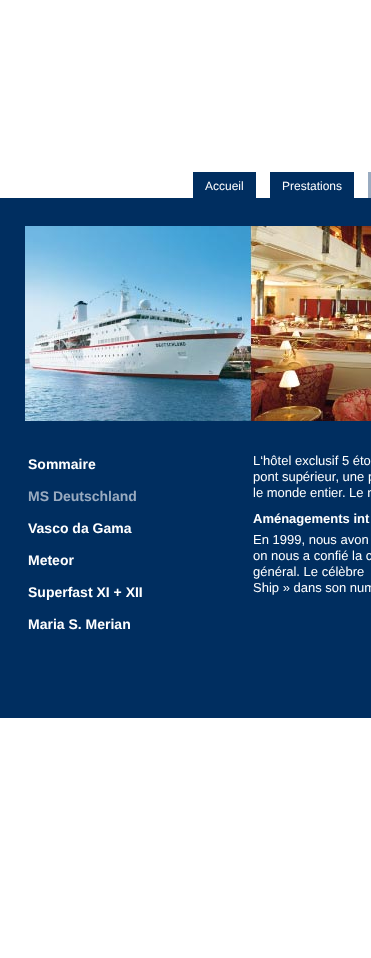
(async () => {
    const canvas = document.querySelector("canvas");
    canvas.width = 371;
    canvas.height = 958;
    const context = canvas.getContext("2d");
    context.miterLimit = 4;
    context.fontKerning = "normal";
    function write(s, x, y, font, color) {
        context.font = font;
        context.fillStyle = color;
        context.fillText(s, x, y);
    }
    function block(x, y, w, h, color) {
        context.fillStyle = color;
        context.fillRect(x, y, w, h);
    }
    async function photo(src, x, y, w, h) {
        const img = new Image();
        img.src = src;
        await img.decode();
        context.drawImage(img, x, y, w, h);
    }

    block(0, 0, 371, 958, "rgb(255, 255, 255)");
    block(193, 172, 63, 26, "rgb(0, 46, 96)");
    write("Accueil", 205, 190, "12px Liberation Sans", "rgb(255, 255, 255)");
    block(270, 172, 84, 26, "rgb(0, 46, 96)");
    write("Prestations", 282, 190, "12px Liberation Sans", "rgb(255, 255, 255)");
    block(368, 172, 3, 26, "rgb(153, 171, 192)");
    block(0, 198, 371, 520, "rgb(0, 46, 96)");
    await photo("media/1.png", 25, 226, 346, 195);
    write("Sommaire", 28, 469, "bold 14px Liberation Sans", "rgb(255, 255, 255)");
    write("MS Deutschland", 28, 501, "bold 14px Liberation Sans", "rgb(153, 171, 192)");
    write("Vasco da Gama", 28, 533, "bold 14px Liberation Sans", "rgb(255, 255, 255)");
    write("Meteor", 28, 565, "bold 14px Liberation Sans", "rgb(255, 255, 255)");
    write("Superfast XI + XII", 28, 597, "bold 14px Liberation Sans", "rgb(255, 255, 255)");
    write("Maria S. Merian", 28, 629, "bold 14px Liberation Sans", "rgb(255, 255, 255)");
    write("L‘hôtel exclusif 5 éto", 253, 465, "13px Liberation Sans", "rgb(255, 255, 255)");
    write("pont supérieur, une p", 253, 481, "13px Liberation Sans", "rgb(255, 255, 255)");
    write("le monde entier. Le n", 253, 497, "13px Liberation Sans", "rgb(255, 255, 255)");
    write("Aménagements int", 253, 523, "bold 13px Liberation Sans", "rgb(255, 255, 255)");
    write("En 1999, nous avon", 253, 544, "13px Liberation Sans", "rgb(255, 255, 255)");
    write("on nous a confié la c", 253, 560, "13px Liberation Sans", "rgb(255, 255, 255)");
    write("général. Le célèbre", 253, 576, "13px Liberation Sans", "rgb(255, 255, 255)");
    write("Ship » dans son num", 253, 592, "13px Liberation Sans", "rgb(255, 255, 255)");
})();
